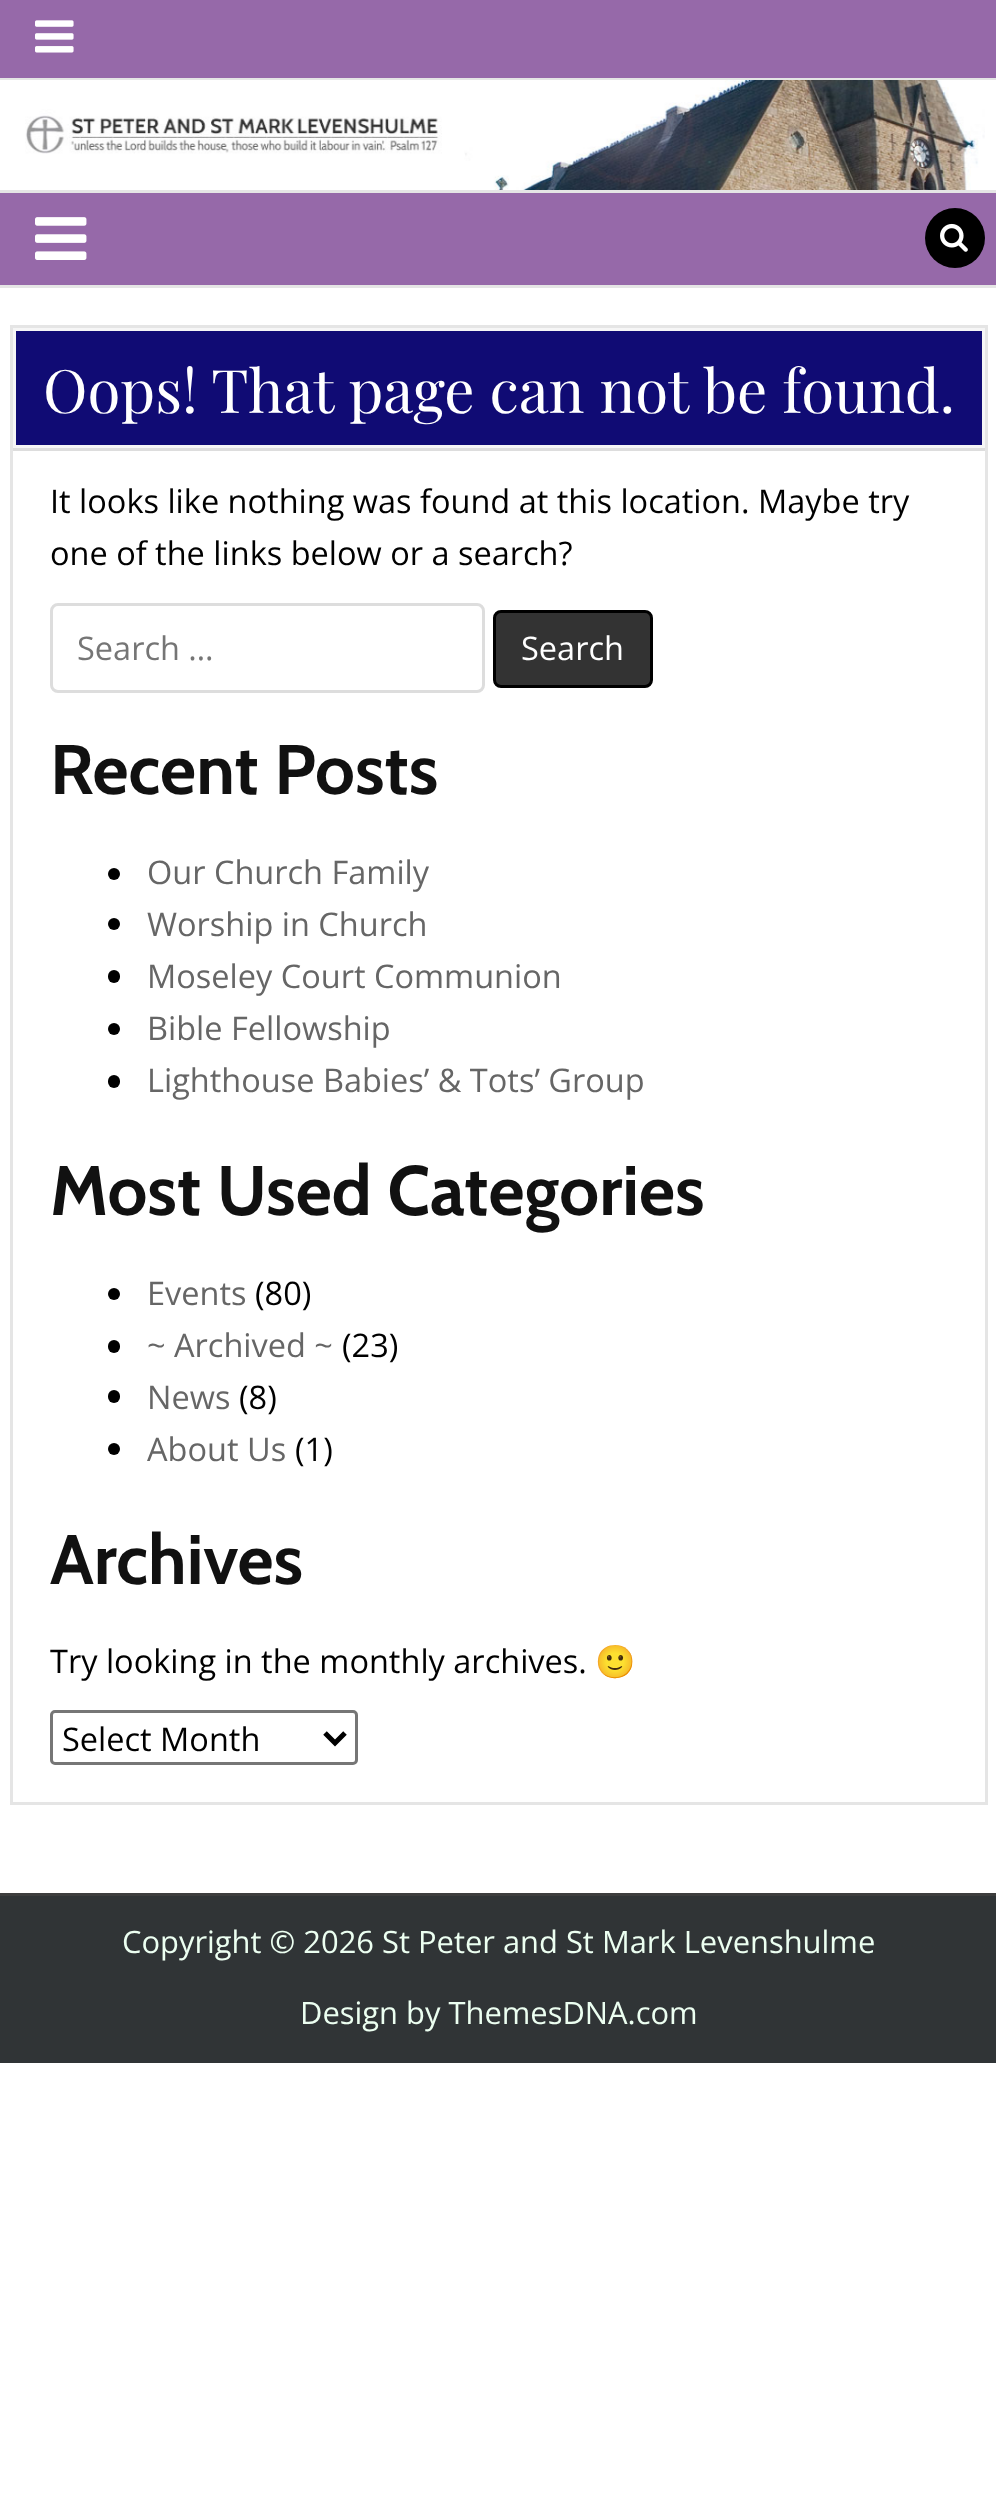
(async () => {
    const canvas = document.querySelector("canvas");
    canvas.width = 996;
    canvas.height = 2505;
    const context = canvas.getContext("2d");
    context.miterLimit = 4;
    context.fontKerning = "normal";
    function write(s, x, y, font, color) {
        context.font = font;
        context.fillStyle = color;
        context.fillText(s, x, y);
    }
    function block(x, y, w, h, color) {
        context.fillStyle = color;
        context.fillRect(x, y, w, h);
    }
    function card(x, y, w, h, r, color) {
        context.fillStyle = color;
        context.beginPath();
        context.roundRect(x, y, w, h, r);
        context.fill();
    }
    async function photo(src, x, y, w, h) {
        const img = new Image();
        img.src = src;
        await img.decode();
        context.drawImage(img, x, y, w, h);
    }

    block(0, 0, 996, 2505, "rgb(255, 255, 255)");
    block(0, 0, 996, 78, "rgb(150, 105, 169)");
    block(0, 78, 996, 2, "rgb(229, 229, 229)");
    await photo("media/1.png", 35, 20, 39, 33);
    await photo("media/2.png", 25, 80, 960, 110);
    block(0, 193, 996, 92, "rgb(150, 105, 169)");
    block(0, 190, 996, 3, "rgb(229, 229, 229)");
    block(0, 285, 996, 3, "rgb(229, 229, 229)");
    await photo("media/3.png", 35, 217, 52, 43);
    context.fillStyle = "rgb(0, 0, 0)";
    context.beginPath();
    context.arc(955, 238, 30, 0, Math.PI * 2);
    context.fill();
    await photo("media/4.png", 940, 223, 28, 29);
    context.strokeStyle = "rgb(229, 229, 229)";
    context.lineWidth = 3;
    context.strokeRect(11.5, 326.5, 975, 1477);
    block(13, 448, 972, 3, "rgb(221, 221, 221)");
    context.fillStyle = "rgb(16, 11, 116)";
    context.beginPath();
    context.rect(14.5, 329.5, 969, 117);
    context.fill();
    context.strokeStyle = "rgb(246, 246, 246)";
    context.stroke();
    write("Oops! That page can not be found.", 43, 413, "60px Playfair Display", "rgb(255, 255, 255)");
    write("It looks like nothing was found at this location. Maybe try", 50, 513, "32.5px Open Sans", "rgb(0, 0, 0)");
    write("one of the links below or a search?", 50, 565, "32.5px Open Sans", "rgb(0, 0, 0)");
    context.beginPath();
    context.roundRect(51.5, 604.5, 432, 87, 6.5);
    context.strokeStyle = "rgb(221, 221, 221)";
    context.stroke();
    write("Search …", 77, 660, "32.5px Open Sans", "rgb(117, 117, 117)");
    context.fillStyle = "rgb(51, 51, 51)";
    context.beginPath();
    context.roundRect(494.5, 611.5, 157, 75, 6.5);
    context.fill();
    context.strokeStyle = "rgb(0, 0, 0)";
    context.stroke();
    write("Search", 521, 660, "32.5px Open Sans", "rgb(255, 255, 255)");
    write("Recent Posts", 50, 794, "bold 70px Cabin", "rgb(17, 17, 17)");
    context.fillStyle = "rgb(0, 0, 0)";
    context.beginPath();
    context.arc(114, 874, 6, 0, Math.PI * 2);
    context.fill();
    write("Our Church Family", 147, 884, "32.5px Open Sans", "rgb(102, 102, 102)");
    context.fillStyle = "rgb(0, 0, 0)";
    context.beginPath();
    context.arc(114, 924, 6, 0, Math.PI * 2);
    context.fill();
    write("Worship in Church", 147, 936, "32.5px Open Sans", "rgb(102, 102, 102)");
    card(108, 970, 12, 13, 6, "rgb(0, 0, 0)");
    write("Moseley Court Communion", 147, 988, "32.5px Open Sans", "rgb(102, 102, 102)");
    context.fillStyle = "rgb(0, 0, 0)";
    context.beginPath();
    context.arc(114, 1029, 6, 0, Math.PI * 2);
    context.fill();
    write("Bible Fellowship", 147, 1040, "32.5px Open Sans", "rgb(102, 102, 102)");
    card(108, 1075, 12, 13, 6, "rgb(0, 0, 0)");
    write("Lighthouse Babies’ & Tots’ Group", 147, 1092, "32.5px Open Sans", "rgb(102, 102, 102)");
    write("Most Used Categories", 50, 1215, "bold 70px Cabin", "rgb(17, 17, 17)");
    context.fillStyle = "rgb(0, 0, 0)";
    context.beginPath();
    context.arc(114, 1294, 6, 0, Math.PI * 2);
    context.fill();
    write("Events", 147, 1305, "32.5px Open Sans", "rgb(102, 102, 102)");
    write("(80)", 255, 1305, "32.5px Open Sans", "rgb(0, 0, 0)");
    card(108, 1340, 12, 13, 6, "rgb(0, 0, 0)");
    write("~ Archived ~", 147, 1357, "32.5px Open Sans", "rgb(102, 102, 102)");
    write("(23)", 342, 1357, "32.5px Open Sans", "rgb(0, 0, 0)");
    card(108, 1390, 12, 13, 6, "rgb(0, 0, 0)");
    write("News", 147, 1409, "32.5px Open Sans", "rgb(102, 102, 102)");
    write("(8)", 239, 1409, "32.5px Open Sans", "rgb(0, 0, 0)");
    context.beginPath();
    context.arc(114, 1449, 6, 0, Math.PI * 2);
    context.fill();
    write("About Us", 147, 1461, "32.5px Open Sans", "rgb(102, 102, 102)");
    write("(1)", 295, 1461, "32.5px Open Sans", "rgb(0, 0, 0)");
    write("Archives", 50, 1584, "bold 70px Cabin", "rgb(17, 17, 17)");
    write("Try looking in the monthly archives.", 50, 1673, "32.5px Open Sans", "rgb(0, 0, 0)");
    write("🙂", 595, 1673, "32.5px Noto Color Emoji", "rgb(0, 0, 0)");
    context.beginPath();
    context.roundRect(51.5, 1711.5, 305, 52, 3.5);
    context.strokeStyle = "rgb(118, 118, 118)";
    context.stroke();
    context.beginPath();
    context.moveTo(325, 1733);
    context.lineTo(335, 1743);
    context.lineTo(345, 1733);
    context.strokeStyle = "rgb(0, 0, 0)";
    context.lineWidth = 5;
    context.stroke();
    write("Select Month", 62, 1751, "32.5px Open Sans", "rgb(0, 0, 0)");
    block(0, 1896, 996, 167, "rgb(48, 52, 54)");
    block(0, 1893, 996, 3, "rgb(61, 61, 61)");
    write("Copyright © 2026 St Peter and St Mark Levenshulme", 122, 1953, "30.9px Open Sans", "rgb(236, 255, 241)");
    write("Design by ThemesDNA.com", 300, 2024, "30.9px Open Sans", "rgb(236, 255, 241)");
})();
